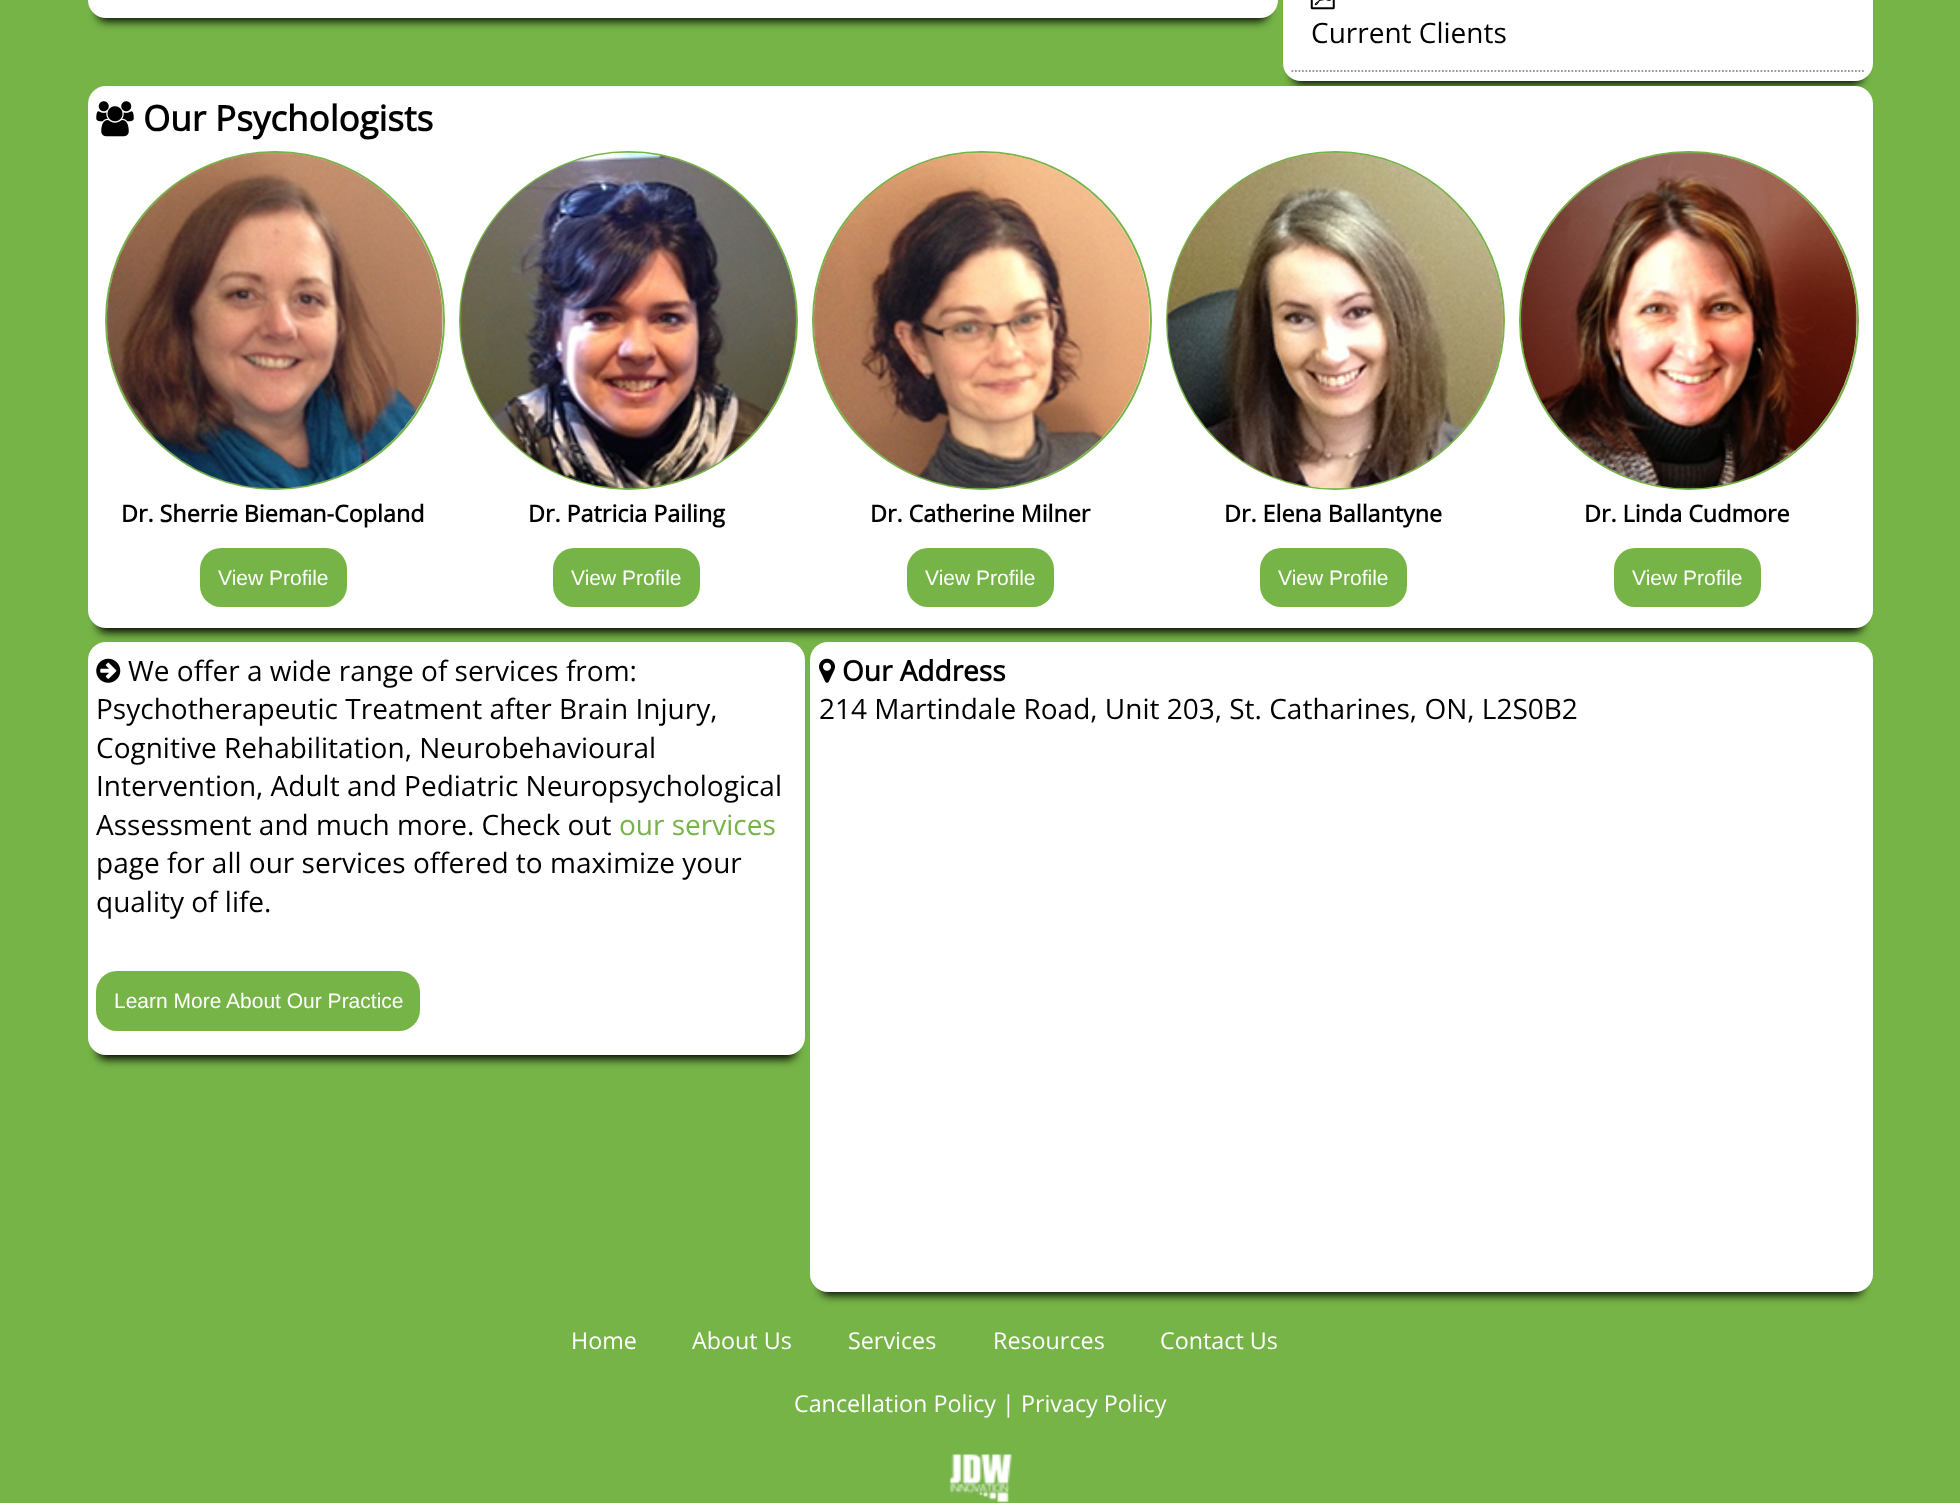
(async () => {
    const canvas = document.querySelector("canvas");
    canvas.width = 1960;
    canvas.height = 1503;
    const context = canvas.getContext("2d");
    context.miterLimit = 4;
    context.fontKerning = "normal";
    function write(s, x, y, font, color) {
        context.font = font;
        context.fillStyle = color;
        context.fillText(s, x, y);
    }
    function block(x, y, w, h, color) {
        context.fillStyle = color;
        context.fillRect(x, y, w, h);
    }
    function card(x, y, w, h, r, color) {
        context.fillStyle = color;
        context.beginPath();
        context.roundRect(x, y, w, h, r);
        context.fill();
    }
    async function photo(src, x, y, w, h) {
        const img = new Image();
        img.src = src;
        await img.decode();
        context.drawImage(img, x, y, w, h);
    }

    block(0, 0, 1960, 1503, "rgb(118, 180, 71)");
    context.fillStyle = "rgb(0, 0, 0)";
    context.filter = "blur(5px)";
    context.beginPath();
    context.roundRect(98, -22, 1169, 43, 7);
    context.fill();
    context.filter = "none";
    card(88, -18, 1190, 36, 18, "rgb(255, 255, 255)");
    context.fillStyle = "rgb(0, 0, 0)";
    context.filter = "blur(5px)";
    context.beginPath();
    context.roundRect(1293, -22, 569, 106, 7);
    context.fill();
    context.filter = "none";
    card(1283, -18, 590, 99, 18, "rgb(255, 255, 255)");
    context.beginPath();
    context.moveTo(1291.5, 71);
    context.lineTo(1864, 71);
    context.strokeStyle = "rgb(153, 153, 153)";
    context.lineWidth = 1.8;
    context.setLineDash([1.75, 1.75]);
    context.stroke();
    await photo("media/1.png", 1310, 0, 25, 10);
    write("Current Clients", 1311, 43, "28px Open Sans", "rgb(0, 0, 0)");
    context.filter = "blur(5px)";
    context.beginPath();
    context.roundRect(98, 110, 1764, 522, 7);
    context.fill();
    context.filter = "none";
    card(88, 86, 1785, 542, 18, "rgb(255, 255, 255)");
    await photo("media/2.png", 96, 101, 38, 36);
    write("Our Psychologists", 143, 131, "bold 35px Open Sans", "rgb(0, 0, 0)");
    context.beginPath();
    context.roundRect(106, 152, 338, 337, 168.5);
    context.strokeStyle = "rgb(118, 180, 71)";
    context.lineWidth = 2;
    context.setLineDash([]);
    context.stroke();
    await photo("media/3.png", 106, 152, 337, 337);
    write("Dr. Sherrie Bieman-Copland", 121, 522, "bold 23.3px Open Sans", "rgb(0, 0, 0)");
    card(200, 548, 147, 59, 21, "rgb(118, 180, 71)");
    write("View Profile", 218, 585, "21px Liberation Sans", "rgb(255, 255, 255)");
    context.beginPath();
    context.arc(628.5, 320.5, 168.5, 0, Math.PI * 2);
    context.stroke();
    await photo("media/4.png", 460, 152, 337, 337);
    write("Dr. Patricia Pailing", 528, 522, "bold 23.3px Open Sans", "rgb(0, 0, 0)");
    card(553, 548, 147, 59, 21, "rgb(118, 180, 71)");
    write("View Profile", 571, 585, "21px Liberation Sans", "rgb(255, 255, 255)");
    context.beginPath();
    context.roundRect(813, 152, 338, 337, 168.5);
    context.stroke();
    await photo("media/5.png", 813, 152, 337, 337);
    write("Dr. Catherine Milner", 870, 522, "bold 23.3px Open Sans", "rgb(0, 0, 0)");
    card(907, 548, 147, 59, 21, "rgb(118, 180, 71)");
    write("View Profile", 925, 585, "21px Liberation Sans", "rgb(255, 255, 255)");
    context.beginPath();
    context.arc(1335.5, 320.5, 168.5, 0, Math.PI * 2);
    context.stroke();
    await photo("media/6.png", 1167, 152, 337, 337);
    write("Dr. Elena Ballantyne", 1224, 522, "bold 23.3px Open Sans", "rgb(0, 0, 0)");
    card(1260, 548, 147, 59, 21, "rgb(118, 180, 71)");
    write("View Profile", 1278, 585, "21px Liberation Sans", "rgb(255, 255, 255)");
    context.beginPath();
    context.roundRect(1520, 152, 338, 337, 168.5);
    context.stroke();
    await photo("media/7.png", 1520, 152, 337, 337);
    write("Dr. Linda Cudmore", 1584, 522, "bold 23.3px Open Sans", "rgb(0, 0, 0)");
    card(1614, 548, 147, 59, 21, "rgb(118, 180, 71)");
    write("View Profile", 1632, 585, "21px Liberation Sans", "rgb(255, 255, 255)");
    context.fillStyle = "rgb(0, 0, 0)";
    context.filter = "blur(5px)";
    context.beginPath();
    context.roundRect(98, 667, 697, 392, 7);
    context.fill();
    context.filter = "none";
    card(88, 642, 717, 413, 18, "rgb(255, 255, 255)");
    await photo("media/8.png", 96, 658, 25, 25);
    write("We offer a wide range of services from:", 128, 681, "28px Open Sans", "rgb(0, 0, 0)");
    write("Psychotherapeutic Treatment after Brain Injury,", 96, 719, "28px Open Sans", "rgb(0, 0, 0)");
    write("Cognitive Rehabilitation, Neurobehavioural", 96, 758, "28px Open Sans", "rgb(0, 0, 0)");
    write("Intervention, Adult and Pediatric Neuropsychological", 96, 796, "28px Open Sans", "rgb(0, 0, 0)");
    write("Assessment and much more. Check out", 96, 835, "28px Open Sans", "rgb(0, 0, 0)");
    write("our services", 619, 835, "28px Open Sans", "rgb(118, 180, 71)");
    write("page for all our services offered to maximize your", 96, 873, "28px Open Sans", "rgb(0, 0, 0)");
    write("quality of life.", 96, 912, "28px Open Sans", "rgb(0, 0, 0)");
    card(96, 971, 324, 60, 21, "rgb(118, 180, 71)");
    write("Learn More About Our Practice", 114, 1008, "21px Liberation Sans", "rgb(255, 255, 255)");
    context.fillStyle = "rgb(0, 0, 0)";
    context.filter = "blur(5px)";
    context.beginPath();
    context.roundRect(821, 667, 1041, 628, 7);
    context.fill();
    context.filter = "none";
    card(810, 642, 1063, 650, 18, "rgb(255, 255, 255)");
    await photo("media/9.png", 819, 658, 16, 25);
    write("Our Address", 842, 681, "bold 28px Open Sans", "rgb(0, 0, 0)");
    write("214 Martindale Road, Unit 203, St. Catharines, ON, L2S0B2", 819, 719, "28px Open Sans", "rgb(0, 0, 0)");
    write("Home", 571, 1349, "23.3px Open Sans", "rgb(255, 255, 255)");
    write("About Us", 692, 1349, "23.3px Open Sans", "rgb(255, 255, 255)");
    write("Services", 848, 1349, "23.3px Open Sans", "rgb(255, 255, 255)");
    write("Resources", 993, 1349, "23.3px Open Sans", "rgb(255, 255, 255)");
    write("Contact Us", 1160, 1349, "23.3px Open Sans", "rgb(255, 255, 255)");
    write("Cancellation Policy | Privacy Policy", 794, 1412, "23.3px Open Sans", "rgb(255, 255, 255)");
    await photo("media/10.png", 949, 1454, 63, 49);
})();
